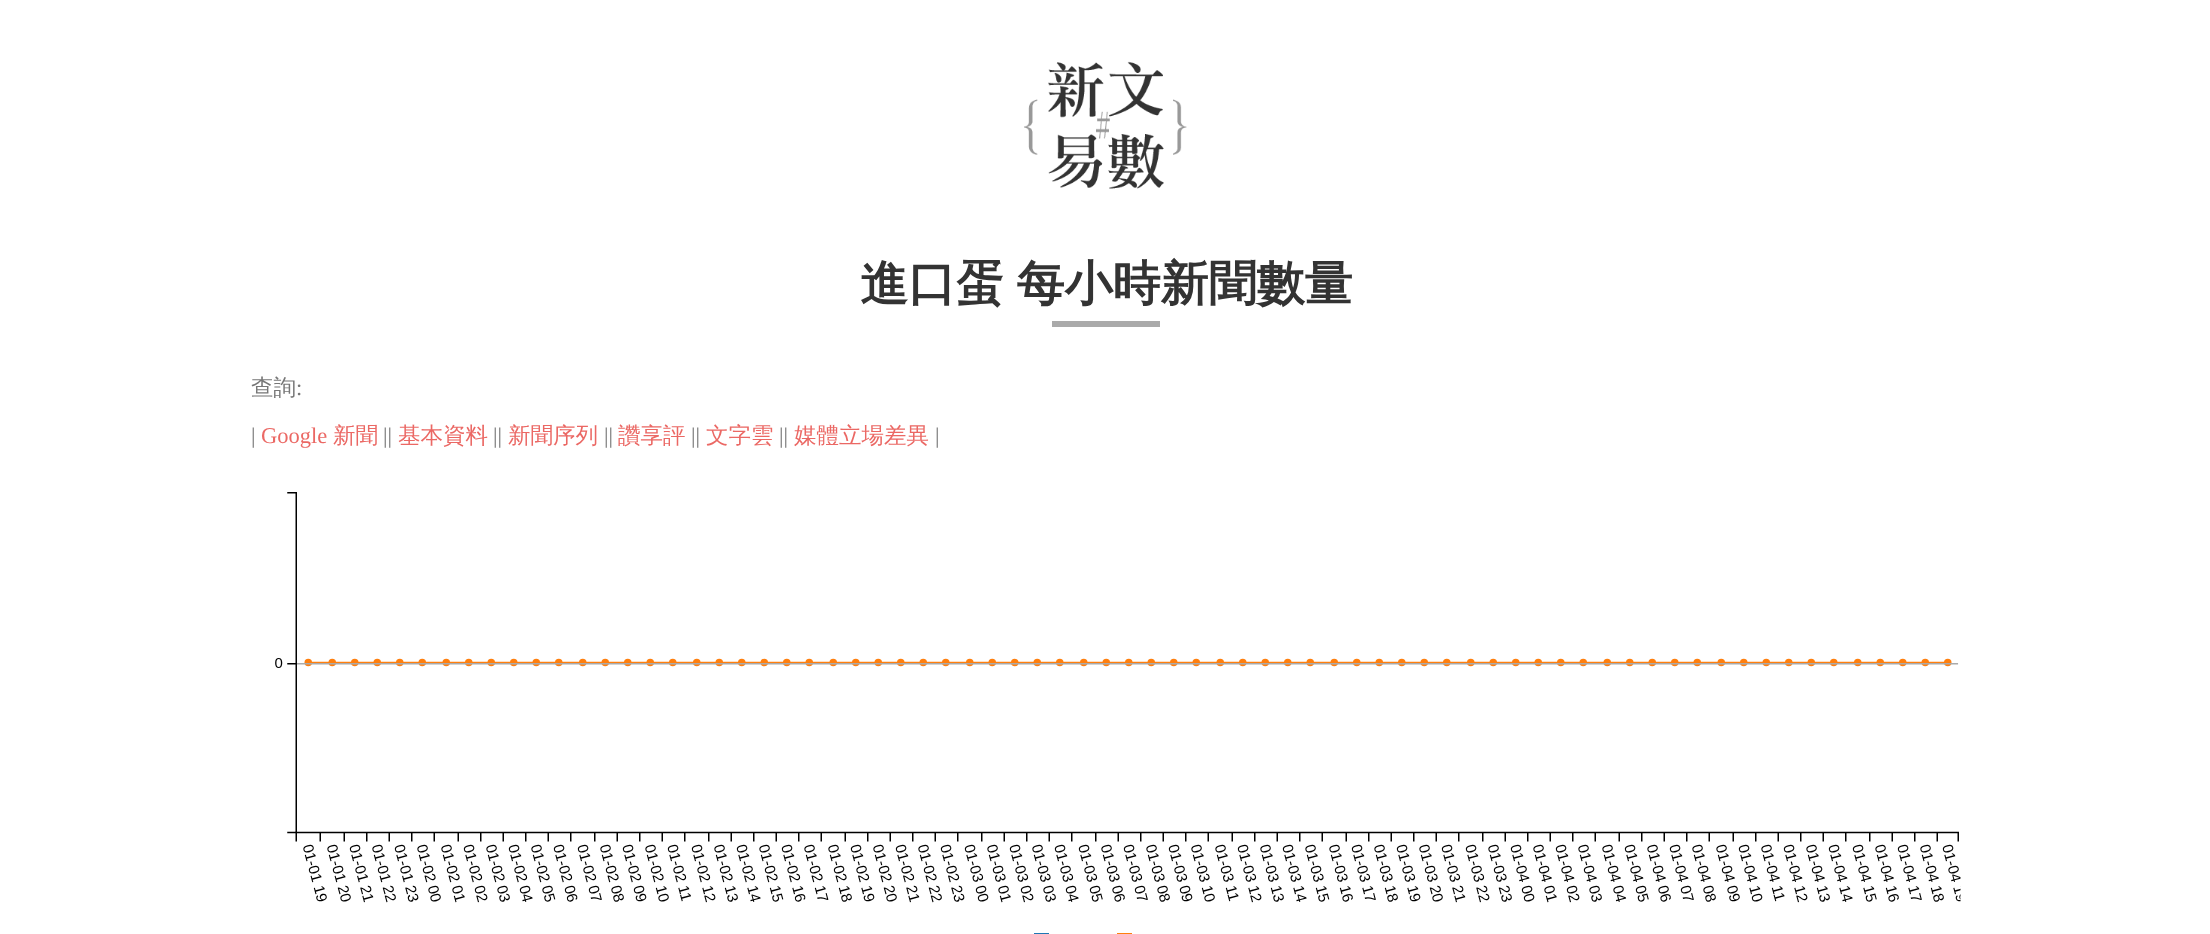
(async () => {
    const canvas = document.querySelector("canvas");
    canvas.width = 2210;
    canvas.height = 934;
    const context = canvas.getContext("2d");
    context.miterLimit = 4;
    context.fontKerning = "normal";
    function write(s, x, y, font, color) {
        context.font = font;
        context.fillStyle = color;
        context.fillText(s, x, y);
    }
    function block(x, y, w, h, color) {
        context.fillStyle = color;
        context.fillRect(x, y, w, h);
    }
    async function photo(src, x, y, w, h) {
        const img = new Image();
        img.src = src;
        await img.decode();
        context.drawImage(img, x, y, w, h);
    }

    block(0, 0, 2210, 934, "rgb(255, 255, 255)");
    await photo("media/1.png", 1024, 61, 163, 128);
    context.wordSpacing = "-2px";
    write("進口蛋 每小時新聞數量", 860, 300, "bold 48px WenQuanYi Zen Hei", "rgb(51, 51, 51)");
    block(1052, 321, 108, 6, "rgb(170, 170, 170)");
    context.wordSpacing = "0px";
    write("查詢", 251, 395, "500 22.5px WenQuanYi Zen Hei", "rgb(119, 119, 119)");
    write(":", 296, 395, "22.5px Liberation Serif", "rgb(119, 119, 119)");
    write("|", 251, 443, "22.5px Liberation Serif", "rgb(119, 119, 119)");
    write("Google", 261, 443, "22.5px Liberation Serif", "rgb(235, 104, 100)");
    write("新聞", 333, 443, "500 22.5px WenQuanYi Zen Hei", "rgb(235, 104, 100)");
    write("||", 383, 443, "22.5px Liberation Serif", "rgb(119, 119, 119)");
    write("基本資料", 398, 443, "500 22.5px WenQuanYi Zen Hei", "rgb(235, 104, 100)");
    write("||", 493, 443, "22.5px Liberation Serif", "rgb(119, 119, 119)");
    write("新聞序列", 508, 443, "500 22.5px WenQuanYi Zen Hei", "rgb(235, 104, 100)");
    write("||", 604, 443, "22.5px Liberation Serif", "rgb(119, 119, 119)");
    write("讚享評", 618, 443, "500 22.5px WenQuanYi Zen Hei", "rgb(235, 104, 100)");
    write("||", 691, 443, "22.5px Liberation Serif", "rgb(119, 119, 119)");
    write("文字雲", 706, 443, "500 22.5px WenQuanYi Zen Hei", "rgb(235, 104, 100)");
    write("||", 779, 443, "22.5px Liberation Serif", "rgb(119, 119, 119)");
    write("媒體立場差異", 794, 443, "500 22.5px WenQuanYi Zen Hei", "rgb(235, 104, 100)");
    write("|", 935, 443, "22.5px Liberation Serif", "rgb(119, 119, 119)");
    await photo("media/2.png", 275, 492, 1686, 442);
})();
